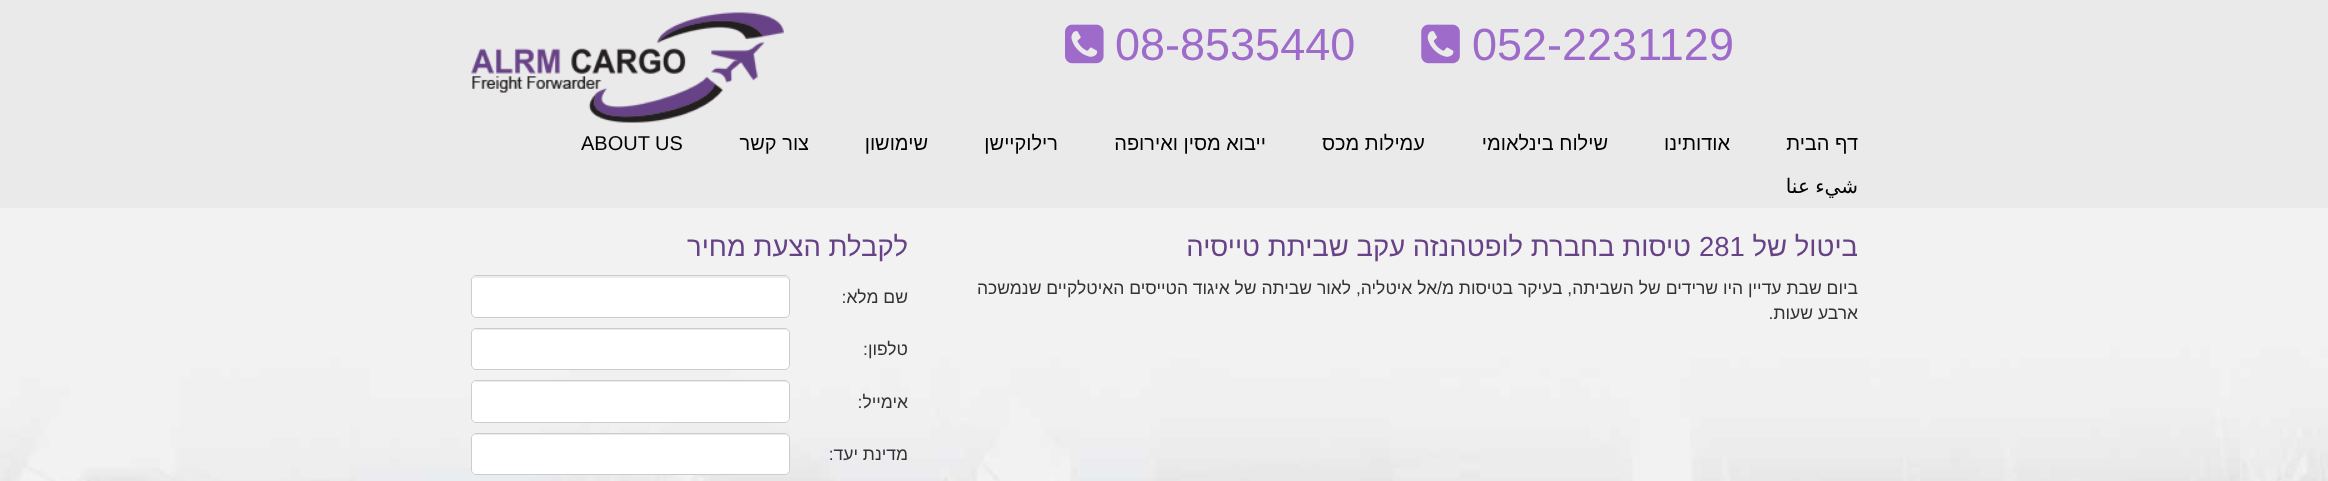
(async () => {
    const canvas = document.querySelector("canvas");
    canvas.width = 2328;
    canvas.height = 481;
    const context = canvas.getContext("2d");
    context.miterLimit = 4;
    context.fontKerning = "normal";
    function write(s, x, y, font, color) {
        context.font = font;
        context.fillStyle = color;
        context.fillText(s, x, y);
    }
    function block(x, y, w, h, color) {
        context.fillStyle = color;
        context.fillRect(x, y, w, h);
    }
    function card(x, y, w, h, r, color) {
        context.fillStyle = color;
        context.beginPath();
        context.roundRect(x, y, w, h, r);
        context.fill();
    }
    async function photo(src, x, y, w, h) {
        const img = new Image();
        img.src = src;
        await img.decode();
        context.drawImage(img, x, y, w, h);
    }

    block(0, 0, 2328, 481, "rgb(234, 234, 234)");
    write("052-2231129", 1472, 60, "45px Liberation Sans", "rgb(158, 107, 202)");
    await photo("media/1.png", 1421, 24, 39, 40);
    write("08-8535440", 1115, 60, "45px Liberation Sans", "rgb(158, 107, 202)");
    await photo("media/2.png", 1065, 24, 39, 40);
    await photo("media/3.png", 471, 12, 313, 111);
    context.direction = "rtl";
    write("דף הבית", 1858, 150, "20px Liberation Sans", "rgb(0, 0, 0)");
    write("אודותינו", 1730, 150, "20px Liberation Sans", "rgb(0, 0, 0)");
    write("שילוח בינלאומי", 1608, 150, "20px Liberation Sans", "rgb(0, 0, 0)");
    write("עמילות מכס", 1425, 150, "20px Liberation Sans", "rgb(0, 0, 0)");
    write("ייבוא מסין ואירופה", 1266, 150, "20px Liberation Sans", "rgb(0, 0, 0)");
    write("רילוקיישן", 1058, 150, "20px Liberation Sans", "rgb(0, 0, 0)");
    write("שימושון", 928, 150, "20px Liberation Sans", "rgb(0, 0, 0)");
    write("צור קשר", 809, 150, "20px Liberation Sans", "rgb(0, 0, 0)");
    context.direction = "ltr";
    write("ABOUT US", 581, 150, "20px Liberation Sans", "rgb(0, 0, 0)");
    context.wordSpacing = "-1px";
    context.direction = "rtl";
    write("شيء عنا", 1858, 193, "20px DejaVu Sans", "rgb(0, 0, 0)");
    await photo("media/4.png", 0, 208, 2328, 273);
    context.wordSpacing = "0px";
    write("ביטול של", 1858, 256, "27.5px Liberation Sans", "rgb(103, 66, 135)");
    context.direction = "ltr";
    write("281", 1699, 256, "27.5px Liberation Sans", "rgb(103, 66, 135)");
    context.direction = "rtl";
    write("טיסות בחברת לופטהנזה עקב שביתת טייסיה", 1691, 256, "27.5px Liberation Sans", "rgb(103, 66, 135)");
    write("ביום שבת עדיין היו שרידים של השביתה, בעיקר בטיסות מ/אל איטליה, לאור שביתה של איגוד הטייסים האיטלקיים שנמשכה", 1858, 294, "17.5px Liberation Sans", "rgb(51, 51, 51)");
    write("ארבע שעות.", 1858, 319, "17.5px Liberation Sans", "rgb(51, 51, 51)");
    write("לקבלת הצעת מחיר", 908, 256, "27.5px Liberation Sans", "rgb(103, 66, 135)");
    write("שם מלא:", 908, 303, "17.5px Liberation Sans", "rgb(51, 51, 51)");
    card(471, 275, 319, 43, 5, "rgb(255, 255, 255)");
    context.fillStyle = "rgb(236, 236, 236)";
    context.beginPath();
    context.moveTo(476, 278);
    context.lineTo(785, 278);
    context.bezierCurveTo(787, 278, 789, 279, 789, 281);
    context.lineTo(789, 280);
    context.bezierCurveTo(789, 278, 787, 276, 785, 276);
    context.lineTo(477, 276);
    context.bezierCurveTo(475, 276, 474, 277, 473, 279);
    context.closePath();
    context.fill();
    context.beginPath();
    context.roundRect(471.5, 275.5, 318, 42, 4.5);
    context.strokeStyle = "rgb(204, 204, 204)";
    context.stroke();
    write("טלפון:", 908, 355, "17.5px Liberation Sans", "rgb(51, 51, 51)");
    card(471, 328, 319, 42, 5, "rgb(255, 255, 255)");
    context.fillStyle = "rgb(236, 236, 236)";
    context.beginPath();
    context.moveTo(476, 330);
    context.lineTo(785, 330);
    context.bezierCurveTo(787, 330, 789, 332, 789, 334);
    context.lineTo(789, 333);
    context.bezierCurveTo(789, 331, 787, 329, 785, 329);
    context.lineTo(477, 329);
    context.bezierCurveTo(476, 329, 474, 330, 474, 331);
    context.closePath();
    context.fill();
    context.beginPath();
    context.roundRect(471.5, 328.5, 318, 41, 4.5);
    context.stroke();
    write("אימייל:", 908, 408, "17.5px Liberation Sans", "rgb(51, 51, 51)");
    card(471, 380, 319, 43, 5, "rgb(255, 255, 255)");
    context.fillStyle = "rgb(236, 236, 236)";
    context.beginPath();
    context.moveTo(476, 382);
    context.lineTo(785, 382);
    context.bezierCurveTo(787, 382, 789, 384, 789, 386);
    context.lineTo(789, 385);
    context.bezierCurveTo(789, 383, 787, 381, 785, 381);
    context.lineTo(477, 381);
    context.bezierCurveTo(476, 381, 474, 382, 474, 383);
    context.closePath();
    context.fill();
    context.beginPath();
    context.roundRect(471.5, 380.5, 318, 42, 4.5);
    context.stroke();
    write("מדינת יעד:", 908, 460, "17.5px Liberation Sans", "rgb(51, 51, 51)");
    card(471, 433, 319, 42, 5, "rgb(255, 255, 255)");
    context.fillStyle = "rgb(236, 236, 236)";
    context.beginPath();
    context.moveTo(476, 435);
    context.lineTo(785, 435);
    context.bezierCurveTo(787, 435, 789, 437, 789, 439);
    context.lineTo(789, 438);
    context.bezierCurveTo(789, 436, 787, 434, 785, 434);
    context.lineTo(477, 434);
    context.bezierCurveTo(476, 434, 474, 435, 474, 436);
    context.closePath();
    context.fill();
    context.beginPath();
    context.roundRect(471.5, 433.5, 318, 41, 4.5);
    context.stroke();
})();
